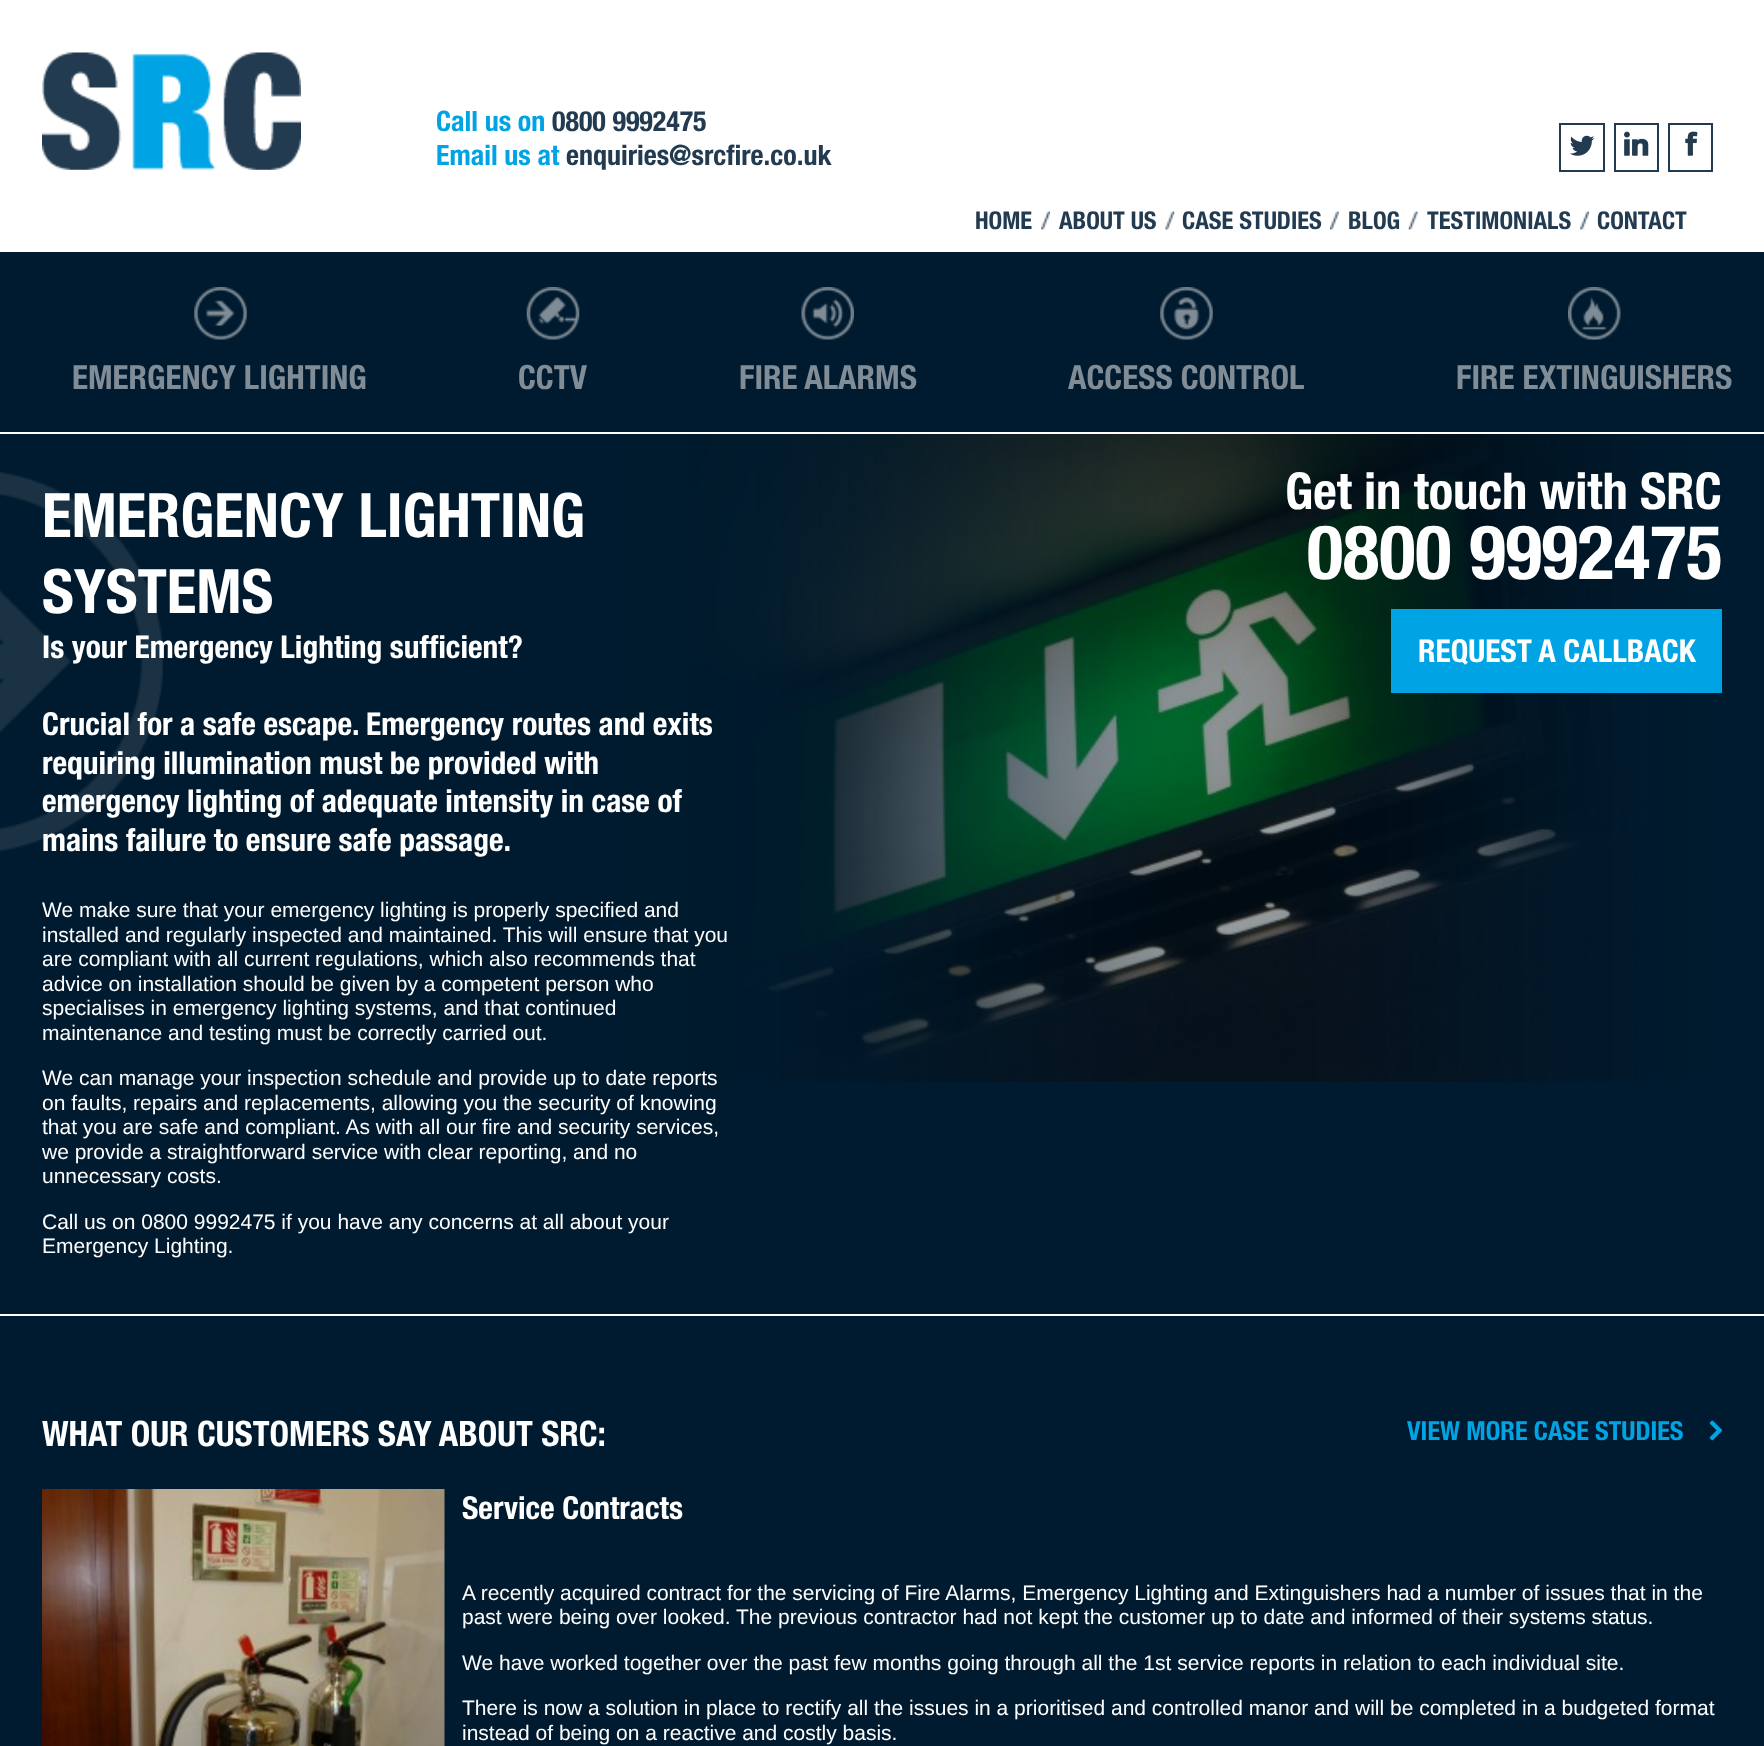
(async () => {
    const canvas = document.querySelector("canvas");
    canvas.width = 1764;
    canvas.height = 1746;
    const context = canvas.getContext("2d");
    context.miterLimit = 4;
    context.fontKerning = "normal";
    function write(s, x, y, font, color) {
        context.font = font;
        context.fillStyle = color;
        context.fillText(s, x, y);
    }
    function block(x, y, w, h, color) {
        context.fillStyle = color;
        context.fillRect(x, y, w, h);
    }
    async function photo(src, x, y, w, h) {
        const img = new Image();
        img.src = src;
        await img.decode();
        context.drawImage(img, x, y, w, h);
    }

    block(0, 0, 1764, 1746, "rgb(0, 27, 47)");
    block(0, 0, 1764, 252, "rgb(255, 255, 255)");
    await photo("media/1.png", 42, 52, 259, 118);
    write("Call us on", 436, 131, "bold 28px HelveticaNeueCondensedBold", "rgb(0, 164, 228)");
    write("0800 9992475", 552, 131, "bold 28px HelveticaNeueCondensedBold", "rgb(35, 59, 80)");
    write("Email us at", 436, 165, "bold 28px HelveticaNeueCondensedBold", "rgb(0, 164, 228)");
    write("enquiries@srcfire.co.uk", 566, 165, "bold 28px HelveticaNeueCondensedBold", "rgb(35, 59, 80)");
    context.strokeStyle = "rgb(35, 59, 80)";
    context.lineWidth = 2;
    context.strokeRect(1560, 124, 44, 47);
    await photo("media/2.png", 1569, 135, 26, 21);
    context.strokeRect(1615, 124, 43, 47);
    await photo("media/3.png", 1624, 131, 25, 25);
    context.strokeRect(1669, 124, 43, 47);
    await photo("media/4.png", 1685, 131, 13, 25);
    write("HOME", 975, 229, "bold 24.5px HelveticaNeueCondensedBold", "rgb(35, 59, 80)");
    await photo("media/5.png", 1041, 211, 9, 19);
    write("ABOUT US", 1059, 229, "bold 24.5px HelveticaNeueCondensedBold", "rgb(35, 59, 80)");
    await photo("media/6.png", 1165, 211, 10, 19);
    write("CASE STUDIES", 1182, 229, "bold 24.5px HelveticaNeueCondensedBold", "rgb(35, 59, 80)");
    await photo("media/7.png", 1330, 211, 9, 19);
    write("BLOG", 1348, 229, "bold 24.5px HelveticaNeueCondensedBold", "rgb(35, 59, 80)");
    await photo("media/8.png", 1408, 211, 10, 19);
    write("TESTIMONIALS", 1427, 229, "bold 24.5px HelveticaNeueCondensedBold", "rgb(35, 59, 80)");
    await photo("media/9.png", 1580, 211, 9, 19);
    write("CONTACT", 1597, 229, "bold 24.5px HelveticaNeueCondensedBold", "rgb(35, 59, 80)");
    block(0, 432, 1764, 2, "rgb(255, 255, 255)");
    await photo("media/10.png", 194, 287, 53, 53);
    write("EMERGENCY LIGHTING", 72, 389, "bold 33.25px HelveticaNeueCondensedBold", "rgb(128, 141, 151)");
    await photo("media/11.png", 526, 287, 54, 53);
    write("CCTV", 518, 389, "bold 33.25px HelveticaNeueCondensedBold", "rgb(128, 141, 151)");
    await photo("media/12.png", 801, 287, 53, 53);
    write("FIRE ALARMS", 739, 389, "bold 33.25px HelveticaNeueCondensedBold", "rgb(128, 141, 151)");
    await photo("media/13.png", 1160, 287, 53, 53);
    write("ACCESS CONTROL", 1068, 389, "bold 33.25px HelveticaNeueCondensedBold", "rgb(128, 141, 151)");
    await photo("media/14.png", 1568, 287, 53, 53);
    write("FIRE EXTINGUISHERS", 1456, 389, "bold 33.25px HelveticaNeueCondensedBold", "rgb(128, 141, 151)");
    block(0, 1314, 1764, 2, "rgb(255, 255, 255)");
    await photo("media/15.png", 0, 472, 163, 379);
    await photo("media/16.png", 608, 434, 1111, 648);
    await photo("media/17.png", 532, 434, 1190, 648);
    write("Get in touch with SRC", 1285, 509, "bold 50.75px HelveticaNeueCondensedBold", "rgb(255, 255, 255)");
    write("0800 9992475", 1307, 579, "bold 75.25px HelveticaNeueCondensedBold", "rgb(255, 255, 255)");
    block(1391, 609, 331, 84, "rgb(0, 164, 228)");
    write("REQUEST A CALLBACK", 1418, 662, "bold 31.5px HelveticaNeueCondensedBold", "rgb(255, 255, 255)");
    write("EMERGENCY LIGHTING", 42, 537, "bold 61.25px HelveticaNeueCondensedBold", "rgb(255, 255, 255)");
    write("SYSTEMS", 42, 613, "bold 61.25px HelveticaNeueCondensedBold", "rgb(255, 255, 255)");
    write("Is your Emergency Lighting sufficient?", 42, 658, "bold 31.5px HelveticaNeueCondensedBold", "rgb(255, 255, 255)");
    write("Crucial for a safe escape. Emergency routes and exits", 42, 735, "bold 31.5px HelveticaNeueCondensedBold", "rgb(255, 255, 255)");
    write("requiring illumination must be provided with", 42, 774, "bold 31.5px HelveticaNeueCondensedBold", "rgb(255, 255, 255)");
    write("emergency lighting of adequate intensity in case of", 42, 812, "bold 31.5px HelveticaNeueCondensedBold", "rgb(255, 255, 255)");
    write("mains failure to ensure safe passage.", 42, 851, "bold 31.5px HelveticaNeueCondensedBold", "rgb(255, 255, 255)");
    write("We make sure that your emergency lighting is properly specified and", 42, 917, "21px Liberation Sans", "rgb(255, 255, 255)");
    write("installed and regularly inspected and maintained. This will ensure that you", 42, 942, "21px Liberation Sans", "rgb(255, 255, 255)");
    write("are compliant with all current regulations, which also recommends that", 42, 966, "21px Liberation Sans", "rgb(255, 255, 255)");
    write("advice on installation should be given by a competent person who", 42, 991, "21px Liberation Sans", "rgb(255, 255, 255)");
    write("specialises in emergency lighting systems, and that continued", 42, 1015, "21px Liberation Sans", "rgb(255, 255, 255)");
    write("maintenance and testing must be correctly carried out.", 42, 1040, "21px Liberation Sans", "rgb(255, 255, 255)");
    write("We can manage your inspection schedule and provide up to date reports", 42, 1085, "21px Liberation Sans", "rgb(255, 255, 255)");
    write("on faults, repairs and replacements, allowing you the security of knowing", 42, 1110, "21px Liberation Sans", "rgb(255, 255, 255)");
    write("that you are safe and compliant. As with all our fire and security services,", 42, 1134, "21px Liberation Sans", "rgb(255, 255, 255)");
    write("we provide a straightforward service with clear reporting, and no", 42, 1159, "21px Liberation Sans", "rgb(255, 255, 255)");
    write("unnecessary costs.", 42, 1183, "21px Liberation Sans", "rgb(255, 255, 255)");
    write("Call us on 0800 9992475 if you have any concerns at all about your", 42, 1229, "21px Liberation Sans", "rgb(255, 255, 255)");
    write("Emergency Lighting.", 42, 1253, "21px Liberation Sans", "rgb(255, 255, 255)");
    write("WHAT OUR CUSTOMERS SAY ABOUT SRC:", 42, 1446, "bold 35px HelveticaNeueCondensedBold", "rgb(255, 255, 255)");
    write("VIEW MORE CASE STUDIES", 1407, 1440, "bold 26.25px HelveticaNeueCondensedBold", "rgb(0, 164, 228)");
    await photo("media/18.png", 1709, 1420, 13, 21);
    await photo("media/19.png", 42, 1489, 403, 257);
    write("Service Contracts", 462, 1519, "bold 31.5px HelveticaNeueCondensedBold", "rgb(255, 255, 255)");
    write("A recently acquired contract for the servicing of Fire Alarms, Emergency Lighting and Extinguishers had a number of issues that in the", 462, 1600, "21px Liberation Sans", "rgb(255, 255, 255)");
    write("past were being over looked. The previous contractor had not kept the customer up to date and informed of their systems status.", 462, 1624, "21px Liberation Sans", "rgb(255, 255, 255)");
    write("We have worked together over the past few months going through all the 1st service reports in relation to each individual site.", 462, 1670, "21px Liberation Sans", "rgb(255, 255, 255)");
    write("There is now a solution in place to rectify all the issues in a prioritised and controlled manor and will be completed in a budgeted format", 462, 1715, "21px Liberation Sans", "rgb(255, 255, 255)");
    write("instead of being on a reactive and costly basis.", 462, 1740, "21px Liberation Sans", "rgb(255, 255, 255)");
})();
